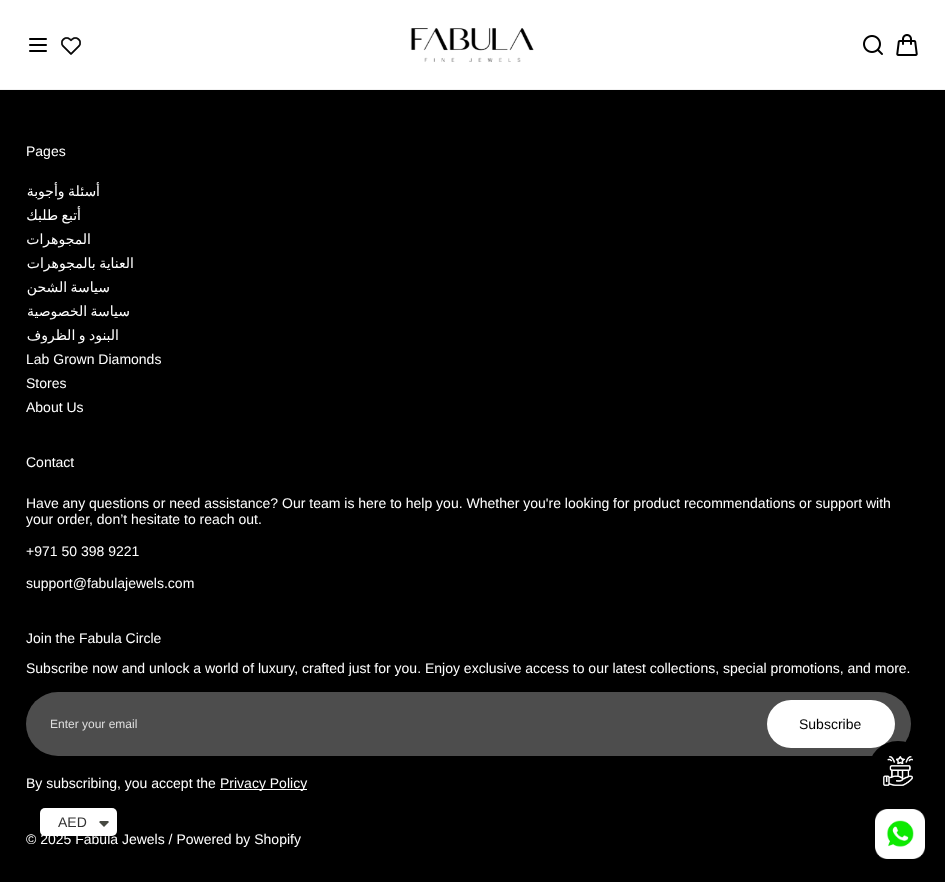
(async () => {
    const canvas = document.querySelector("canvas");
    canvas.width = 945;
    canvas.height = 882;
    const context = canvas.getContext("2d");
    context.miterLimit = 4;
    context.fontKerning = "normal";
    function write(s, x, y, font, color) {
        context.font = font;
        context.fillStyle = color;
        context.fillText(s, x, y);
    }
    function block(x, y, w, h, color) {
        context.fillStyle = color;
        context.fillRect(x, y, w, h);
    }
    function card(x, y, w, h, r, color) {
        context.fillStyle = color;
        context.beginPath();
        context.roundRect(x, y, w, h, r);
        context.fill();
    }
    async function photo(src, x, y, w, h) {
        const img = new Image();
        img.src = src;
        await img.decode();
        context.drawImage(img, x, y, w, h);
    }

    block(0, 0, 945, 882, "rgb(0, 0, 0)");
    block(0, 0, 945, 89, "rgb(255, 255, 255)");
    block(0, 89, 945, 1, "rgb(242, 242, 242)");
    await photo("media/1.png", 29, 38, 18, 14);
    await photo("media/2.png", 61, 37, 20, 18);
    await photo("media/3.png", 410, 28, 124, 34);
    await photo("media/4.png", 863, 35, 20, 20);
    await photo("media/5.png", 896, 34, 22, 22);
    write("Pages", 26, 156, "14px Arimo", "rgb(255, 255, 255)");
    context.wordSpacing = "-1px";
    context.direction = "rtl";
    write("أسئلة وأجوبة", 100, 196, "14px DejaVu Sans", "rgb(255, 255, 255)");
    write("أتبع طلبك", 81, 220, "14px DejaVu Sans", "rgb(255, 255, 255)");
    context.wordSpacing = "0px";
    write("المجوهرات", 91, 244, "14px DejaVu Sans", "rgb(255, 255, 255)");
    context.wordSpacing = "-1px";
    write("العناية بالمجوهرات", 134, 268, "14px DejaVu Sans", "rgb(255, 255, 255)");
    write("سياسة الشحن", 110, 292, "14px DejaVu Sans", "rgb(255, 255, 255)");
    write("سياسة الخصوصية", 130, 316, "14px DejaVu Sans", "rgb(255, 255, 255)");
    write("البنود و الظروف", 119, 340, "14px DejaVu Sans", "rgb(255, 255, 255)");
    context.wordSpacing = "0px";
    context.direction = "ltr";
    write("Lab Grown Diamonds", 26, 364, "14px Arimo", "rgb(255, 255, 255)");
    write("Stores", 26, 388, "14px Arimo", "rgb(255, 255, 255)");
    write("About Us", 26, 412, "14px Arimo", "rgb(255, 255, 255)");
    write("Contact", 26, 467, "14px Arimo", "rgb(255, 255, 255)");
    write("Have any questions or need assistance? Our team is here to help you. Whether you're looking for product recommendations or support with", 26, 508, "14px Arimo", "rgb(255, 255, 255)");
    write("your order, don’t hesitate to reach out.", 26, 524, "14px Arimo", "rgb(255, 255, 255)");
    write("+971 50 398 9221", 26, 556, "14px Arimo", "rgb(255, 255, 255)");
    write("support@fabulajewels.com", 26, 588, "14px Arimo", "rgb(255, 255, 255)");
    write("Join the Fabula Circle", 26, 643, "14px Arimo", "rgb(255, 255, 255)");
    write("Subscribe now and unlock a world of luxury, crafted just for you. Enjoy exclusive access to our latest collections, special promotions, and more.", 26, 673, "14px Arimo", "rgb(255, 255, 255)");
    card(26, 692, 885, 64, 32, "rgb(77, 77, 77)");
    write("Enter your email", 50, 728, "12px Arimo", "rgb(223, 223, 223)");
    card(767, 700, 128, 48, 24, "rgb(255, 255, 255)");
    write("Subscribe", 799, 729, "14px Arimo", "rgb(0, 0, 0)");
    write("By subscribing, you accept the", 26, 788, "14px Arimo", "rgb(255, 255, 255)");
    block(220, 789, 87, 1, "rgb(255, 255, 255)");
    write("Privacy Policy", 220, 788, "14px Arimo", "rgb(255, 255, 255)");
    write("© 2025 Fabula Jewels / Powered by Shopify", 26, 844, "14px Arimo", "rgb(255, 255, 255)");
    context.fillStyle = "rgb(0, 0, 0)";
    context.beginPath();
    context.arc(898, 771, 30, 0, Math.PI * 2);
    context.fill();
    await photo("media/6.png", 883, 756, 30, 30);
    card(40, 808, 77, 28, 5, "rgb(255, 255, 255)");
    write("AED", 58, 827, "14px Arimo", "rgb(51, 51, 51)");
    context.fillStyle = "rgb(71, 73, 66)";
    context.beginPath();
    context.moveTo(101, 821);
    context.bezierCurveTo(100, 821, 99.5, 821.5, 99, 822);
    context.lineTo(104, 827);
    context.lineTo(109, 822);
    context.lineTo(108, 821);
    context.closePath();
    context.fill();
    await photo("media/7.png", 875, 809, 50, 50);
})();
